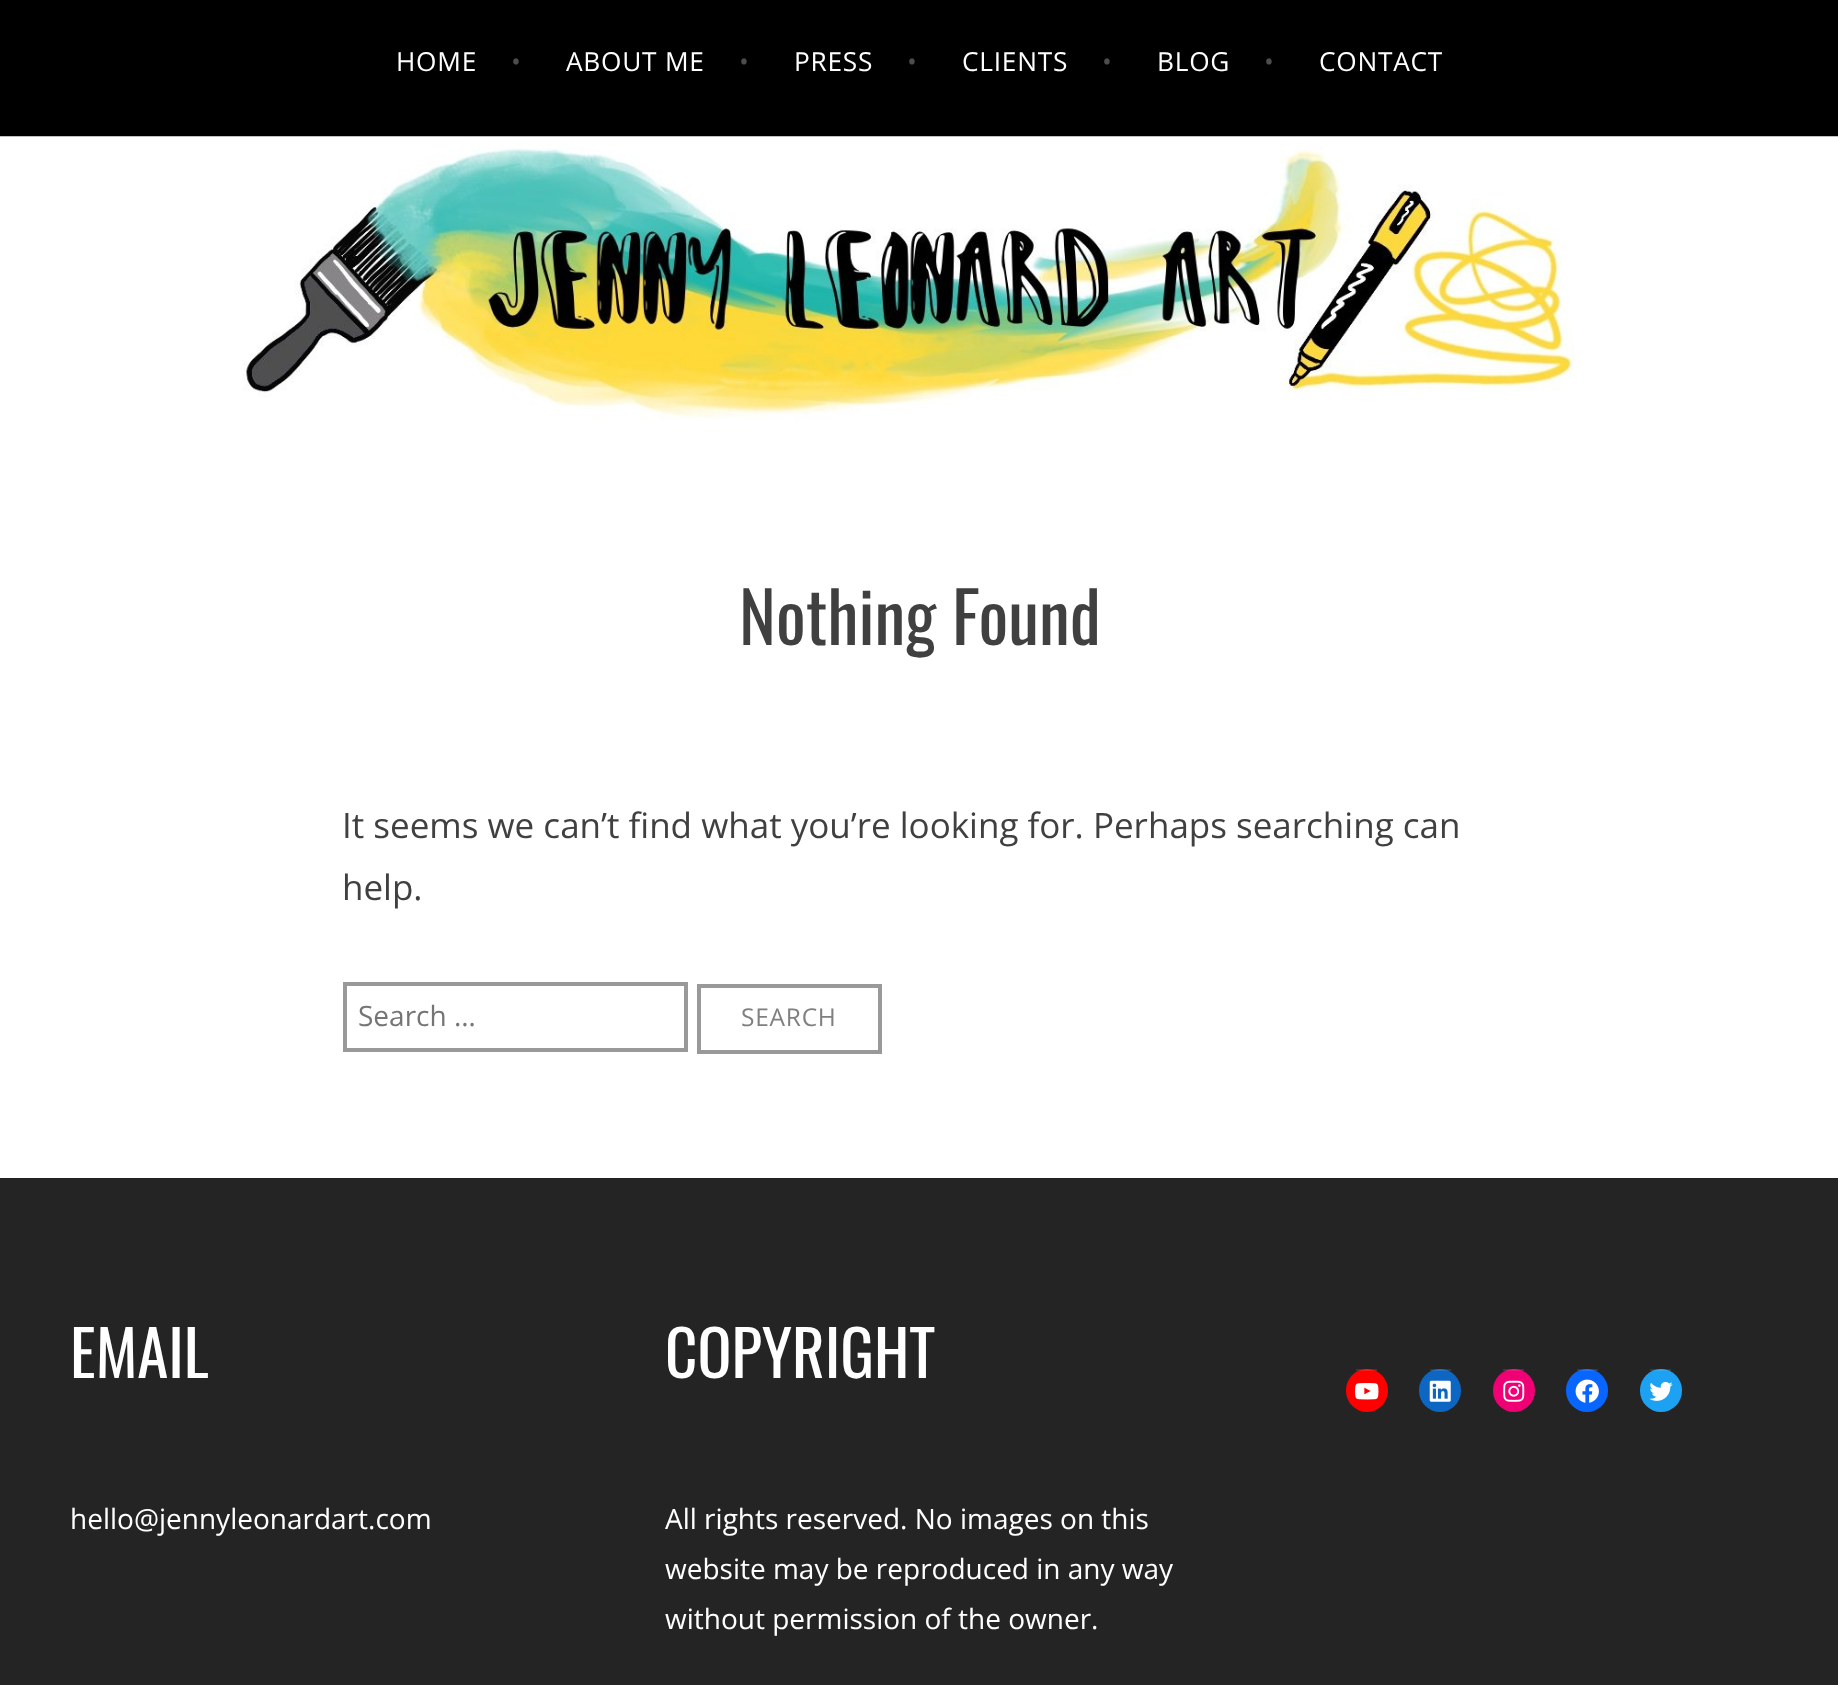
(async () => {
    const canvas = document.querySelector("canvas");
    canvas.width = 1838;
    canvas.height = 1685;
    const context = canvas.getContext("2d");
    context.miterLimit = 4;
    context.fontKerning = "normal";
    function write(s, x, y, font, color) {
        context.font = font;
        context.fillStyle = color;
        context.fillText(s, x, y);
    }
    function block(x, y, w, h, color) {
        context.fillStyle = color;
        context.fillRect(x, y, w, h);
    }
    function card(x, y, w, h, r, color) {
        context.fillStyle = color;
        context.beginPath();
        context.roundRect(x, y, w, h, r);
        context.fill();
    }
    async function photo(src, x, y, w, h) {
        const img = new Image();
        img.src = src;
        await img.decode();
        context.drawImage(img, x, y, w, h);
    }

    block(0, 0, 1838, 1685, "rgb(255, 255, 255)");
    block(0, 0, 1838, 137, "rgb(0, 0, 0)");
    context.letterSpacing = "0.75px";
    write("HOME", 396, 71, "26.25px Open Sans", "rgb(255, 255, 255)");
    write("•", 511, 71, "26.25px Open Sans", "rgb(77, 77, 77)");
    write("ABOUT ME", 566, 71, "26.25px Open Sans", "rgb(255, 255, 255)");
    write("•", 739, 71, "26.25px Open Sans", "rgb(77, 77, 77)");
    write("PRESS", 794, 71, "26.25px Open Sans", "rgb(255, 255, 255)");
    write("•", 907, 71, "26.25px Open Sans", "rgb(77, 77, 77)");
    write("CLIENTS", 962, 71, "26.25px Open Sans", "rgb(255, 255, 255)");
    write("•", 1102, 71, "26.25px Open Sans", "rgb(77, 77, 77)");
    write("BLOG", 1157, 71, "26.25px Open Sans", "rgb(255, 255, 255)");
    write("•", 1264, 71, "26.25px Open Sans", "rgb(77, 77, 77)");
    write("CONTACT", 1319, 71, "26.25px Open Sans", "rgb(255, 255, 255)");
    await photo("media/1.png", 0, 136, 1838, 298);
    context.letterSpacing = "0px";
    write("Nothing Found", 739, 645, "70px Oswald", "rgb(64, 64, 64)");
    write("It seems we can’t find what you’re looking for. Perhaps searching can", 342, 838, "35px Open Sans", "rgb(64, 64, 64)");
    write("help.", 342, 900, "35px Open Sans", "rgb(64, 64, 64)");
    context.strokeStyle = "rgb(153, 153, 153)";
    context.lineWidth = 4;
    context.strokeRect(345, 984, 341, 66);
    write("Search …", 358, 1026, "28px Open Sans", "rgb(117, 117, 117)");
    context.strokeRect(699, 986, 181, 66);
    context.letterSpacing = "0.75px";
    write("SEARCH", 741, 1026, "24.5px Open Sans", "rgb(128, 128, 128)");
    block(0, 1178, 1838, 507, "rgb(36, 36, 36)");
    context.letterSpacing = "0px";
    write("EMAIL", 70, 1378, "63px Oswald", "rgb(255, 255, 255)");
    write("hello@jennyleonardart.com", 70, 1529, "28px Open Sans", "rgb(255, 255, 255)");
    write("COPYRIGHT", 665, 1378, "63px Oswald", "rgb(255, 255, 255)");
    write("All rights reserved. No images on this", 665, 1529, "28px Open Sans", "rgb(255, 255, 255)");
    write("website may be reproduced in any way", 665, 1579, "28px Open Sans", "rgb(255, 255, 255)");
    write("without permission of the owner.", 665, 1629, "28px Open Sans", "rgb(255, 255, 255)");
    card(1346, 1369, 42, 43, 21, "rgb(255, 0, 0)");
    block(1356, 1369, 21, 2, "rgba(255, 255, 255, 0.1)");
    await photo("media/2.png", 1355, 1383, 24, 17);
    card(1419, 1369, 42, 43, 21, "rgb(13, 102, 194)");
    block(1430, 1369, 21, 2, "rgba(255, 255, 255, 0.1)");
    await photo("media/3.png", 1429, 1380, 22, 22);
    card(1493, 1369, 42, 43, 21, "rgb(240, 0, 117)");
    block(1503, 1369, 21, 2, "rgba(255, 255, 255, 0.1)");
    await photo("media/4.png", 1503, 1380, 22, 22);
    card(1566, 1369, 42, 43, 21, "rgb(8, 102, 255)");
    block(1577, 1369, 21, 2, "rgba(255, 255, 255, 0.1)");
    await photo("media/5.png", 1575, 1379, 24, 24);
    card(1640, 1369, 42, 43, 21, "rgb(29, 161, 242)");
    block(1650, 1369, 21, 2, "rgba(255, 255, 255, 0.1)");
    await photo("media/6.png", 1649, 1381, 24, 20);
})();
